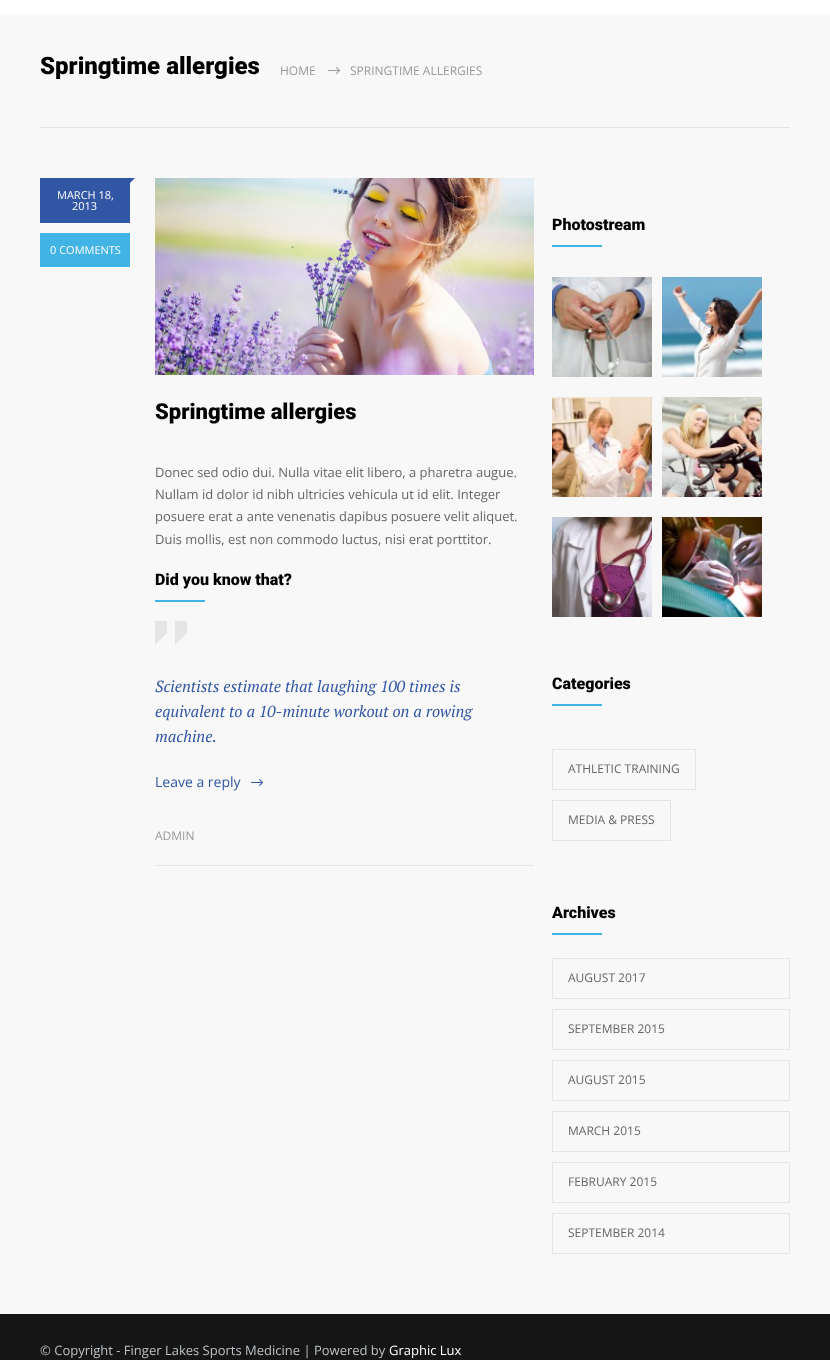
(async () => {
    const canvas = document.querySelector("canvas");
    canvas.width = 830;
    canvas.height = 1360;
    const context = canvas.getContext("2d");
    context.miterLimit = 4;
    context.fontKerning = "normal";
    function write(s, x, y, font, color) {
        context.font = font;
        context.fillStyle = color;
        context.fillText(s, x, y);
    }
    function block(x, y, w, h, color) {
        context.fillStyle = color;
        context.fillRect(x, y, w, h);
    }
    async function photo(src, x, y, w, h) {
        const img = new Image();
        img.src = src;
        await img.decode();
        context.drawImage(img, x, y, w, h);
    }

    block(0, 0, 830, 1360, "rgb(248, 248, 248)");
    block(0, 0, 830, 15, "rgb(255, 255, 255)");
    block(40, 127, 750, 1, "rgb(229, 229, 229)");
    write("Springtime allergies", 40, 74, "900 24px Roboto", "rgb(0, 0, 0)");
    write("HOME", 280, 75, "12px Open Sans", "rgb(153, 153, 153)");
    await photo("media/1.png", 328, 67, 12, 7);
    write("SPRINGTIME ALLERGIES", 350, 75, "12px Open Sans", "rgb(153, 153, 153)");
    context.fillStyle = "rgb(49, 86, 163)";
    context.beginPath();
    context.moveTo(130, 178);
    context.lineTo(135, 178);
    context.lineTo(130, 183);
    context.closePath();
    context.fill();
    block(40, 178, 90, 45, "rgb(49, 86, 163)");
    write("MARCH 18,", 57, 199, "11px Open Sans", "rgb(255, 255, 255)");
    write("2013", 72, 210, "11px Open Sans", "rgb(255, 255, 255)");
    block(40, 233, 90, 34, "rgb(66, 179, 229)");
    write("0 COMMENTS", 50, 254, "11px Open Sans", "rgb(255, 255, 255)");
    block(155, 865, 379, 1, "rgb(229, 229, 229)");
    await photo("media/2.png", 155, 178, 379, 197);
    write("Springtime allergies", 155, 419, "900 22px Roboto", "rgb(0, 0, 0)");
    write("Donec sed odio dui. Nulla vitae elit libero, a pharetra augue.", 155, 477, "13px Open Sans", "rgb(102, 102, 102)");
    write("Nullam id dolor id nibh ultricies vehicula ut id elit. Integer", 155, 499, "13px Open Sans", "rgb(102, 102, 102)");
    write("posuere erat a ante venenatis dapibus posuere velit aliquet.", 155, 521, "13px Open Sans", "rgb(102, 102, 102)");
    write("Duis mollis, est non commodo luctus, nisi erat porttitor.", 155, 544, "13px Open Sans", "rgb(102, 102, 102)");
    write("Did you know that?", 155, 585, "900 16px Roboto", "rgb(0, 0, 0)");
    block(155, 600, 50, 2, "rgb(66, 179, 229)");
    context.fillStyle = "rgb(229, 229, 229)";
    context.beginPath();
    context.moveTo(155, 621);
    context.lineTo(155, 645);
    context.lineTo(167, 633);
    context.lineTo(167, 621);
    context.closePath();
    context.moveTo(175, 621);
    context.lineTo(175, 645);
    context.lineTo(187, 633);
    context.lineTo(187, 621);
    context.closePath();
    context.fill();
    write("Scientists estimate that laughing 100 times is", 155, 692, "italic 16px PT Serif", "rgb(49, 86, 163)");
    write("equivalent to a 10-minute workout on a rowing", 155, 717, "italic 16px PT Serif", "rgb(49, 86, 163)");
    write("machine.", 155, 742, "italic 16px PT Serif", "rgb(49, 86, 163)");
    write("Leave a reply", 155, 787, "14px Open Sans", "rgb(49, 86, 163)");
    await photo("media/3.png", 251, 779, 12, 7);
    write("ADMIN", 155, 840, "12px Open Sans", "rgb(153, 153, 153)");
    write("Photostream", 552, 230, "900 16px Roboto", "rgb(0, 0, 0)");
    block(552, 245, 50, 2, "rgb(66, 179, 229)");
    await photo("media/4.png", 552, 277, 100, 100);
    await photo("media/5.png", 662, 277, 100, 100);
    await photo("media/6.png", 552, 397, 100, 100);
    await photo("media/7.png", 662, 397, 100, 100);
    await photo("media/8.png", 552, 517, 100, 100);
    await photo("media/9.png", 662, 517, 100, 100);
    write("Categories", 552, 689, "900 16px Roboto", "rgb(0, 0, 0)");
    block(552, 704, 50, 2, "rgb(66, 179, 229)");
    context.strokeStyle = "rgb(229, 229, 229)";
    context.strokeRect(552.5, 749.5, 143, 40);
    write("ATHLETIC TRAINING", 568, 773, "12px Open Sans", "rgb(102, 102, 102)");
    context.strokeRect(552.5, 800.5, 118, 40);
    write("MEDIA & PRESS", 568, 824, "12px Open Sans", "rgb(102, 102, 102)");
    write("Archives", 552, 918, "900 16px Roboto", "rgb(0, 0, 0)");
    block(552, 933, 50, 2, "rgb(66, 179, 229)");
    context.strokeRect(552.5, 958.5, 237, 40);
    write("AUGUST 2017", 568, 982, "12px Open Sans", "rgb(102, 102, 102)");
    context.strokeRect(552.5, 1009.5, 237, 40);
    write("SEPTEMBER 2015", 568, 1033, "12px Open Sans", "rgb(102, 102, 102)");
    context.strokeRect(552.5, 1060.5, 237, 40);
    write("AUGUST 2015", 568, 1084, "12px Open Sans", "rgb(102, 102, 102)");
    context.strokeRect(552.5, 1111.5, 237, 40);
    write("MARCH 2015", 568, 1135, "12px Open Sans", "rgb(102, 102, 102)");
    context.strokeRect(552.5, 1162.5, 237, 40);
    write("FEBRUARY 2015", 568, 1186, "12px Open Sans", "rgb(102, 102, 102)");
    context.strokeRect(552.5, 1213.5, 237, 40);
    write("SEPTEMBER 2014", 568, 1237, "12px Open Sans", "rgb(102, 102, 102)");
    block(0, 1314, 830, 46, "rgb(21, 21, 21)");
    write("© Copyright - Finger Lakes Sports Medicine | Powered by", 40, 1355, "13px Open Sans", "rgb(186, 192, 197)");
    write("Graphic Lux", 389, 1355, "13px Open Sans", "rgb(255, 255, 255)");
})();
